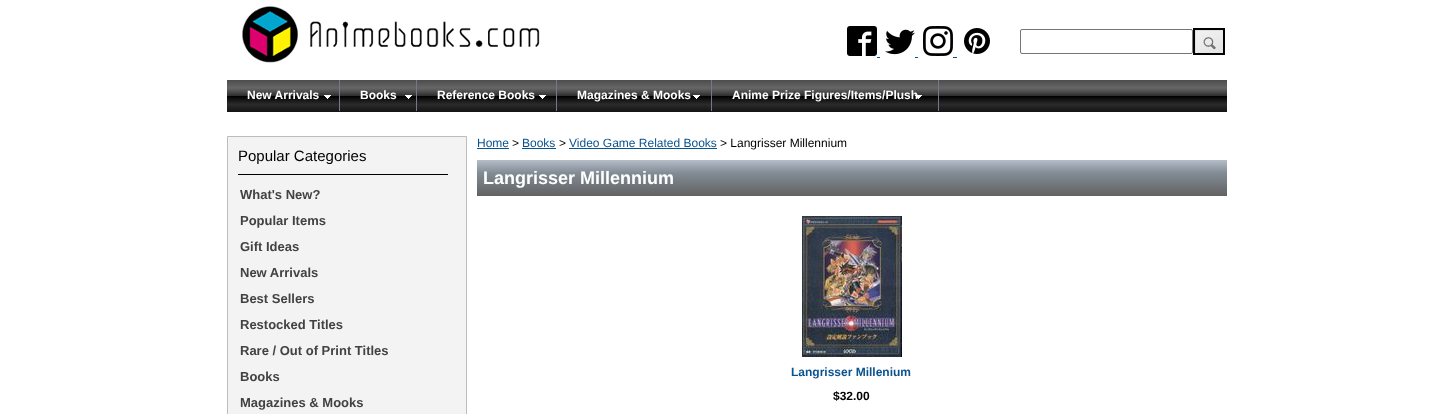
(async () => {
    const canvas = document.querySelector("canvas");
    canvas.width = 1453;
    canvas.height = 414;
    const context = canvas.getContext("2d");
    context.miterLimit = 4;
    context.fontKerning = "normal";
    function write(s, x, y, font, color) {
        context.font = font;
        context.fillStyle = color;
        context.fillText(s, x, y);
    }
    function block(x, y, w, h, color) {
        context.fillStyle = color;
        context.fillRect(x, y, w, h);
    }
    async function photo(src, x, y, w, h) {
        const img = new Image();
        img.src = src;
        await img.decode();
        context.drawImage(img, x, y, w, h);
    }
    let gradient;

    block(0, 0, 1453, 414, "rgb(255, 255, 255)");
    await photo("media/1.png", 242, 6, 298, 57);
    await photo("media/2.png", 847, 26, 30, 30);
    await photo("media/3.png", 885, 29, 30, 26);
    await photo("media/4.png", 923, 26, 30, 30);
    await photo("media/5.png", 964, 28, 26, 26);
    block(877, 57, 3, 1, "rgb(9, 83, 143)");
    block(915, 57, 3, 1, "rgb(9, 83, 143)");
    block(953, 57, 4, 1, "rgb(9, 83, 143)");
    context.beginPath();
    context.roundRect(1020.5, 29.5, 172, 24, 1.5);
    context.strokeStyle = "rgb(118, 118, 118)";
    context.stroke();
    await photo("media/6.png", 1195, 30, 28, 23);
    context.strokeStyle = "rgb(0, 0, 0)";
    context.lineWidth = 2;
    context.strokeRect(1194, 29, 30, 25);
    gradient = context.createLinearGradient(727, 80, 727, 112);
    gradient.addColorStop(0, "rgb(76, 76, 76)");
    gradient.addColorStop(0.12, "rgb(89, 89, 89)");
    gradient.addColorStop(0.25, "rgb(102, 102, 102)");
    gradient.addColorStop(0.39, "rgb(71, 71, 71)");
    gradient.addColorStop(0.5, "rgb(44, 44, 44)");
    gradient.addColorStop(0.51, "rgb(0, 0, 0)");
    gradient.addColorStop(0.6, "rgb(17, 17, 17)");
    gradient.addColorStop(0.76, "rgb(43, 43, 43)");
    gradient.addColorStop(0.91, "rgb(28, 28, 28)");
    gradient.addColorStop(1, "rgb(19, 19, 19)");
    context.fillStyle = gradient;
    context.fillRect(227, 80, 1000, 32);
    await photo("media/7.png", 324, 95, 7, 4);
    block(339, 80, 1, 31, "rgb(119, 119, 136)");
    write("New Arrivals", 247, 99, "bold 12px Liberation Sans", "rgb(255, 255, 255)");
    await photo("media/7.png", 405, 95, 7, 4);
    block(416, 80, 1, 31, "rgb(119, 119, 136)");
    write("Books", 360, 99, "bold 12px Liberation Sans", "rgb(255, 255, 255)");
    await photo("media/7.png", 539, 95, 7, 4);
    block(556, 80, 1, 31, "rgb(119, 119, 136)");
    write("Reference Books", 437, 99, "bold 12px Liberation Sans", "rgb(255, 255, 255)");
    await photo("media/7.png", 693, 95, 7, 4);
    block(711, 80, 1, 31, "rgb(119, 119, 136)");
    write("Magazines & Mooks", 577, 99, "bold 12px Liberation Sans", "rgb(255, 255, 255)");
    await photo("media/7.png", 915, 95, 7, 4);
    block(938, 80, 1, 31, "rgb(119, 119, 136)");
    write("Anime Prize Figures/Items/Plush", 732, 99, "bold 12px Liberation Sans", "rgb(255, 255, 255)");
    context.fillStyle = "rgb(243, 243, 244)";
    context.beginPath();
    context.rect(227.5, 136.5, 239, 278);
    context.fill();
    context.strokeStyle = "rgb(188, 188, 188)";
    context.lineWidth = 1;
    context.stroke();
    block(238, 174, 210, 1, "rgb(0, 0, 0)");
    write("Popular Categories", 238, 161, "15px Liberation Sans", "rgb(0, 0, 0)");
    write("What's New?", 240, 199, "bold 13px Liberation Sans", "rgb(66, 66, 66)");
    write("Popular Items", 240, 225, "bold 13px Liberation Sans", "rgb(66, 66, 66)");
    write("Gift Ideas", 240, 251, "bold 13px Liberation Sans", "rgb(66, 66, 66)");
    write("New Arrivals", 240, 277, "bold 13px Liberation Sans", "rgb(66, 66, 66)");
    write("Best Sellers", 240, 303, "bold 13px Liberation Sans", "rgb(66, 66, 66)");
    write("Restocked Titles", 240, 329, "bold 13px Liberation Sans", "rgb(66, 66, 66)");
    write("Rare / Out of Print Titles", 240, 355, "bold 13px Liberation Sans", "rgb(66, 66, 66)");
    write("Books", 240, 381, "bold 13px Liberation Sans", "rgb(66, 66, 66)");
    write("Magazines & Mooks", 240, 407, "bold 13px Liberation Sans", "rgb(66, 66, 66)");
    write("Home", 477, 147, "12px Liberation Sans", "rgb(9, 83, 143)");
    block(477, 148, 32, 1, "rgb(9, 83, 143)");
    write(">", 512, 147, "12px Liberation Sans", "rgb(0, 0, 0)");
    write("Books", 522, 147, "12px Liberation Sans", "rgb(9, 83, 143)");
    block(522, 148, 34, 1, "rgb(9, 83, 143)");
    write(">", 559, 147, "12px Liberation Sans", "rgb(0, 0, 0)");
    write("Video Game Related Books", 569, 147, "12px Liberation Sans", "rgb(9, 83, 143)");
    block(569, 148, 148, 1, "rgb(9, 83, 143)");
    write("> Langrisser Millennium", 720, 147, "12px Liberation Sans", "rgb(0, 0, 0)");
    gradient = context.createLinearGradient(852, 160, 852, 196);
    gradient.addColorStop(0, "rgb(181, 189, 200)");
    gradient.addColorStop(0.36, "rgb(130, 140, 149)");
    gradient.addColorStop(1, "rgb(98, 98, 98)");
    context.fillStyle = gradient;
    context.fillRect(477, 160, 750, 36);
    write("Langrisser Millennium", 483, 184, "bold 18px Liberation Sans", "rgb(255, 255, 255)");
    await photo("media/8.png", 802, 216, 100, 141);
    write("Langrisser Millenium", 791, 376, "bold 12px Liberation Sans", "rgb(9, 83, 143)");
    write("$32.00", 833, 400, "bold 12px Liberation Sans", "rgb(0, 0, 0)");
})();
